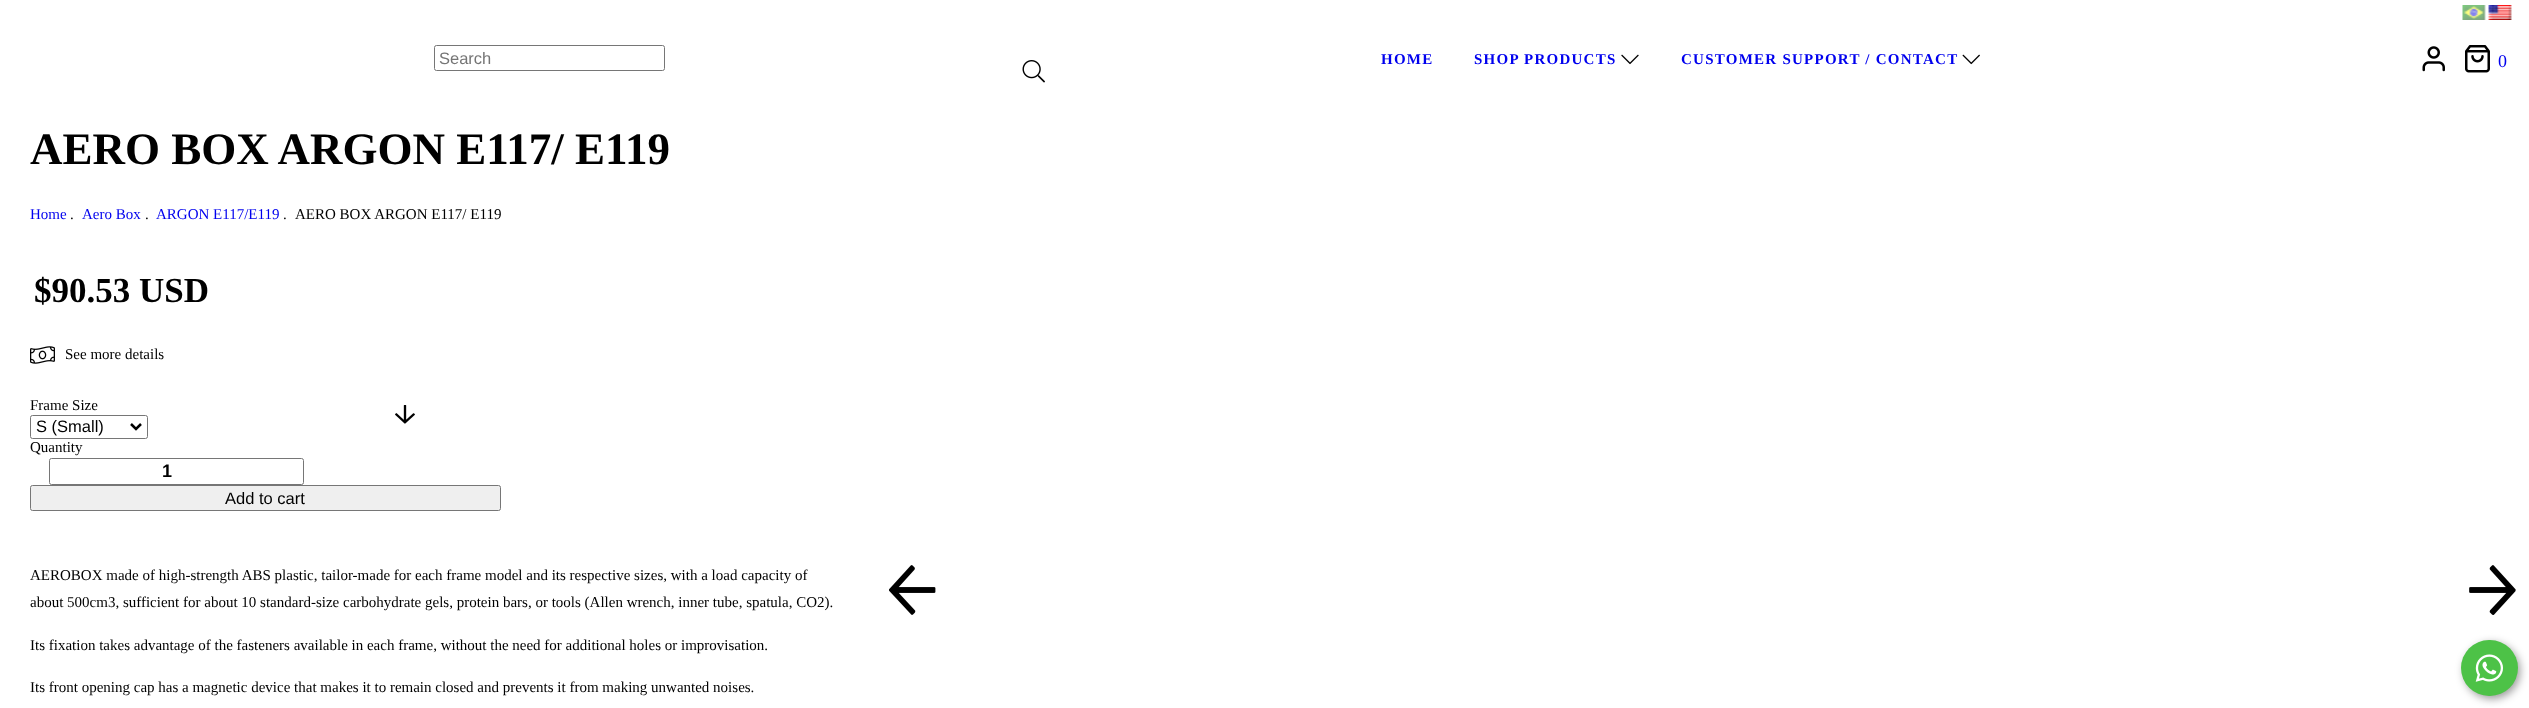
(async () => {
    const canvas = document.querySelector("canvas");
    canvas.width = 2529;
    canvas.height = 708;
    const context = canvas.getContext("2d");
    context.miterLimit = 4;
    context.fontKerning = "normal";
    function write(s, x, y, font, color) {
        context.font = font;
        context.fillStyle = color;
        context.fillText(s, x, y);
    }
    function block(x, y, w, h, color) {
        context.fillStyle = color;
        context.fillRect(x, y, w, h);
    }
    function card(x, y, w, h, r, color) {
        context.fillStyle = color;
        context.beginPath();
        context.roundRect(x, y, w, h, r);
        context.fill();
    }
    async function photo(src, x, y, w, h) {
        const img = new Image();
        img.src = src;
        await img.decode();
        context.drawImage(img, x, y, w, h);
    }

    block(0, 0, 2529, 708, "rgb(255, 255, 255)");
    await photo("media/1.png", 2462, 5, 24, 15);
    await photo("media/2.png", 2488, 5, 24, 15);
    context.beginPath();
    context.roundRect(434.5, 45.5, 230, 25, 2);
    context.strokeStyle = "rgb(118, 118, 118)";
    context.stroke();
    write("Search", 439, 64, "16.5px Liberation Sans", "rgb(117, 117, 117)");
    await photo("media/3.png", 1022, 60, 23, 23);
    context.letterSpacing = "1.25px";
    write("HOME", 1381, 64, "bold 15px Liberation Serif", "rgb(0, 0, 238)");
    write("SHOP PRODUCTS", 1474, 64, "bold 15px Liberation Serif", "rgb(0, 0, 238)");
    await photo("media/4.png", 1621, 54, 18, 11);
    write("CUSTOMER SUPPORT / CONTACT", 1681, 64, "bold 15px Liberation Serif", "rgb(0, 0, 238)");
    await photo("media/5.png", 1962, 54, 18, 11);
    await photo("media/6.png", 2422, 46, 23, 26);
    await photo("media/7.png", 2465, 45, 25, 28);
    context.letterSpacing = "0px";
    write("0", 2498, 67, "18px Liberation Serif", "rgb(0, 0, 238)");
    write("AERO BOX ARGON E117/ E119", 30, 164, "bold 45px Liberation Serif", "rgb(0, 0, 0)");
    write("Home", 30, 219, "15px Liberation Serif", "rgb(0, 0, 238)");
    write(".", 70, 219, "15px Liberation Serif", "rgb(0, 0, 0)");
    write("Aero Box", 82, 219, "15px Liberation Serif", "rgb(0, 0, 238)");
    write(".", 145, 219, "15px Liberation Serif", "rgb(0, 0, 0)");
    write("ARGON E117/E119", 156, 219, "15px Liberation Serif", "rgb(0, 0, 238)");
    write(".", 283, 219, "15px Liberation Serif", "rgb(0, 0, 0)");
    write("AERO BOX ARGON E117/ E119", 295, 219, "15px Liberation Serif", "rgb(0, 0, 0)");
    write("$90.53 USD", 34, 302, "bold 35px Liberation Serif", "rgb(0, 0, 0)");
    await photo("media/8.png", 30, 346, 25, 18);
    write("See more details", 65, 359, "15px Liberation Serif", "rgb(0, 0, 0)");
    write("Frame Size", 30, 410, "15px Liberation Serif", "rgb(0, 0, 0)");
    await photo("media/9.png", 395, 405, 20, 19);
    context.beginPath();
    context.roundRect(30.5, 415.5, 117, 23, 2);
    context.stroke();
    context.beginPath();
    context.moveTo(131, 424);
    context.lineTo(136, 429);
    context.lineTo(141, 424);
    context.strokeStyle = "rgb(0, 0, 0)";
    context.lineWidth = 2.5;
    context.stroke();
    write("S (Small)", 36, 432, "16.5px Liberation Sans", "rgb(0, 0, 0)");
    write("Quantity", 30, 452, "15px Liberation Serif", "rgb(0, 0, 0)");
    context.beginPath();
    context.roundRect(49.5, 458.5, 254, 26, 2);
    context.strokeStyle = "rgb(118, 118, 118)";
    context.lineWidth = 1;
    context.stroke();
    write("1", 162, 477, "bold 18px Liberation Sans", "rgb(0, 0, 0)");
    context.fillStyle = "rgb(239, 239, 239)";
    context.beginPath();
    context.roundRect(30.5, 485.5, 470, 25, 2);
    context.fill();
    context.stroke();
    write("Add to cart", 225, 504, "16.5px Liberation Sans", "rgb(0, 0, 0)");
    write("AEROBOX made of high-strength ABS plastic, tailor-made for each frame model and its respective sizes, with a load capacity of", 30, 580, "15px Liberation Serif", "rgb(0, 0, 0)");
    write("about 500cm3, sufficient for about 10 standard-size carbohydrate gels, protein bars, or tools (Allen wrench, inner tube, spatula, CO2).", 30, 607, "15px Liberation Serif", "rgb(0, 0, 0)");
    write("Its fixation takes advantage of the fasteners available in each frame, without the need for additional holes or improvisation.", 30, 650, "15px Liberation Serif", "rgb(0, 0, 0)");
    write("Its front opening cap has a magnetic device that makes it to remain closed and prevents it from making unwanted noises.", 30, 692, "15px Liberation Serif", "rgb(0, 0, 0)");
    await photo("media/10.png", 889, 565, 47, 50);
    await photo("media/11.png", 2469, 565, 47, 50);
    context.fillStyle = "rgba(0, 0, 0, 0.4)";
    context.filter = "blur(4px)";
    context.beginPath();
    context.roundRect(2464, 643, 56, 56, 28);
    context.fill();
    context.filter = "none";
    card(2461, 640, 57, 56, 28, "rgb(77, 194, 71)");
    await photo("media/12.png", 2475, 654, 28, 28);
})();
